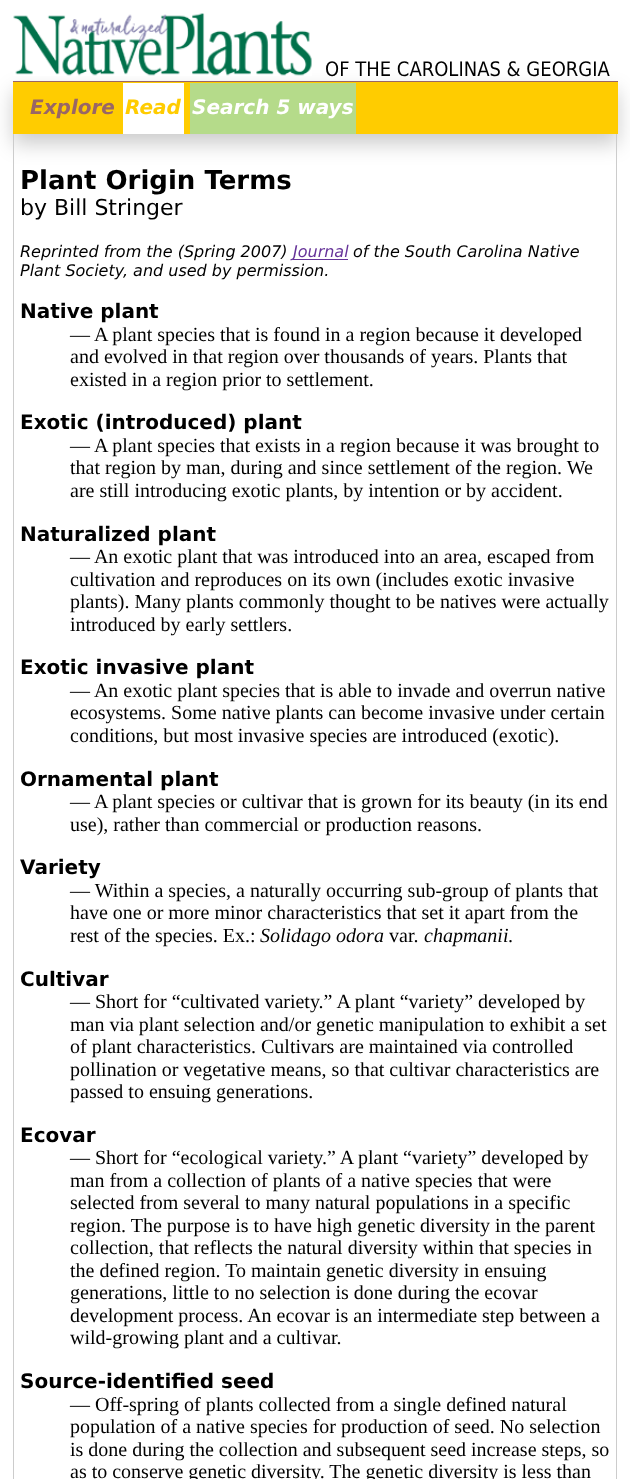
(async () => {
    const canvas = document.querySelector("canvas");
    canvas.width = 630;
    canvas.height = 1479;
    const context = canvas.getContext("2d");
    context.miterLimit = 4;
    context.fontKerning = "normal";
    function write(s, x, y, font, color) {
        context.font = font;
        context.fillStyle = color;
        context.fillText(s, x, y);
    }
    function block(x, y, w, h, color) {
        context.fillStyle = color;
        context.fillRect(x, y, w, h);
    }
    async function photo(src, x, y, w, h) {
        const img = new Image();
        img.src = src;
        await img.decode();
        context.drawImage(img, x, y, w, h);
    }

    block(0, 0, 630, 1479, "rgb(255, 255, 255)");
    context.fillStyle = "rgba(0, 0, 0, 0.2)";
    context.filter = "blur(10px)";
    context.beginPath();
    context.rect(13, 91, 605, 53);
    context.fill();
    context.filter = "none";
    await photo("media/1.png", 13, 13, 299, 63);
    write("OF THE CAROLINAS & GEORGIA", 325, 76, "20px DejaVu Sans", "rgb(0, 0, 0)");
    block(13, 82, 605, 52, "rgb(255, 204, 0)");
    block(13, 81, 605, 1, "rgb(153, 102, 102)");
    write("Explore", 30, 114, "italic bold 20px DejaVu Sans", "rgb(153, 102, 102)");
    block(123, 83, 61, 51, "rgb(255, 255, 255)");
    write("Read", 125, 114, "italic bold 20px DejaVu Sans", "rgb(255, 204, 0)");
    block(190, 83, 166, 51, "rgb(181, 219, 138)");
    write("Search 5 ways", 192, 114, "italic bold 20px DejaVu Sans", "rgb(255, 255, 255)");
    block(616, 134, 1, 1345, "rgb(204, 204, 204)");
    block(13, 134, 1, 1345, "rgb(204, 204, 204)");
    write("Plant Origin Terms", 20, 189, "bold 26px DejaVu Sans", "rgb(0, 0, 0)");
    write("by Bill Stringer", 20, 215, "22px 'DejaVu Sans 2'", "rgb(0, 0, 0)");
    write("Reprinted from the (Spring 2007)", 20, 257, "italic 16px DejaVu Sans", "rgb(0, 0, 0)");
    block(293, 259, 55, 1, "rgb(102, 51, 153)");
    write("Journal", 293, 257, "italic 16px DejaVu Sans", "rgb(102, 51, 153)");
    write("of the South Carolina Native", 353, 257, "italic 16px DejaVu Sans", "rgb(0, 0, 0)");
    write("Plant Society, and used by permission.", 20, 276, "italic 16px DejaVu Sans", "rgb(0, 0, 0)");
    write("Native plant", 20, 318, "bold 20px DejaVu Sans", "rgb(0, 0, 0)");
    write("— A plant species that is found in a region because it developed", 70, 341, "20px Liberation Serif", "rgb(0, 0, 0)");
    write("and evolved in that region over thousands of years. Plants that", 70, 363, "20px Liberation Serif", "rgb(0, 0, 0)");
    write("existed in a region prior to settlement.", 70, 386, "20px Liberation Serif", "rgb(0, 0, 0)");
    write("Exotic (introduced) plant", 20, 429, "bold 20px DejaVu Sans", "rgb(0, 0, 0)");
    write("— A plant species that exists in a region because it was brought to", 70, 452, "20px Liberation Serif", "rgb(0, 0, 0)");
    write("that region by man, during and since settlement of the region. We", 70, 474, "20px Liberation Serif", "rgb(0, 0, 0)");
    write("are still introducing exotic plants, by intention or by accident.", 70, 497, "20px Liberation Serif", "rgb(0, 0, 0)");
    write("Naturalized plant", 20, 541, "bold 20px DejaVu Sans", "rgb(0, 0, 0)");
    write("— An exotic plant that was introduced into an area, escaped from", 70, 563, "20px Liberation Serif", "rgb(0, 0, 0)");
    write("cultivation and reproduces on its own (includes exotic invasive", 70, 586, "20px Liberation Serif", "rgb(0, 0, 0)");
    write("plants). Many plants commonly thought to be natives were actually", 70, 608, "20px Liberation Serif", "rgb(0, 0, 0)");
    write("introduced by early settlers.", 70, 631, "20px Liberation Serif", "rgb(0, 0, 0)");
    write("Exotic invasive plant", 20, 674, "bold 20px DejaVu Sans", "rgb(0, 0, 0)");
    write("— An exotic plant species that is able to invade and overrun native", 70, 697, "20px Liberation Serif", "rgb(0, 0, 0)");
    write("ecosystems. Some native plants can become invasive under certain", 70, 719, "20px Liberation Serif", "rgb(0, 0, 0)");
    write("conditions, but most invasive species are introduced (exotic).", 70, 742, "20px Liberation Serif", "rgb(0, 0, 0)");
    write("Ornamental plant", 20, 786, "bold 20px DejaVu Sans", "rgb(0, 0, 0)");
    write("— A plant species or cultivar that is grown for its beauty (in its end", 70, 808, "20px Liberation Serif", "rgb(0, 0, 0)");
    write("use), rather than commercial or production reasons.", 70, 831, "20px Liberation Serif", "rgb(0, 0, 0)");
    write("Variety", 20, 874, "bold 20px DejaVu Sans", "rgb(0, 0, 0)");
    write("— Within a species, a naturally occurring sub-group of plants that", 70, 897, "20px Liberation Serif", "rgb(0, 0, 0)");
    write("have one or more minor characteristics that set it apart from the", 70, 919, "20px Liberation Serif", "rgb(0, 0, 0)");
    write("rest of the species. Ex.:", 70, 942, "20px Liberation Serif", "rgb(0, 0, 0)");
    write("Solidago odora", 260, 942, "italic 20px Liberation Serif", "rgb(0, 0, 0)");
    write("var.", 389, 942, "20px Liberation Serif", "rgb(0, 0, 0)");
    write("chapmanii.", 424, 942, "italic 20px Liberation Serif", "rgb(0, 0, 0)");
    write("Cultivar", 20, 986, "bold 20px DejaVu Sans", "rgb(0, 0, 0)");
    write("— Short for “cultivated variety.” A plant “variety” developed by", 70, 1008, "20px Liberation Serif", "rgb(0, 0, 0)");
    write("man via plant selection and/or genetic manipulation to exhibit a set", 70, 1031, "20px Liberation Serif", "rgb(0, 0, 0)");
    write("of plant characteristics. Cultivars are maintained via controlled", 70, 1053, "20px Liberation Serif", "rgb(0, 0, 0)");
    write("pollination or vegetative means, so that cultivar characteristics are", 70, 1076, "20px Liberation Serif", "rgb(0, 0, 0)");
    write("passed to ensuing generations.", 70, 1098, "20px Liberation Serif", "rgb(0, 0, 0)");
    write("Ecovar", 20, 1142, "bold 20px DejaVu Sans", "rgb(0, 0, 0)");
    write("— Short for “ecological variety.” A plant “variety” developed by", 70, 1164, "20px Liberation Serif", "rgb(0, 0, 0)");
    write("man from a collection of plants of a native species that were", 70, 1187, "20px Liberation Serif", "rgb(0, 0, 0)");
    write("selected from several to many natural populations in a specific", 70, 1209, "20px Liberation Serif", "rgb(0, 0, 0)");
    write("region. The purpose is to have high genetic diversity in the parent", 70, 1232, "20px Liberation Serif", "rgb(0, 0, 0)");
    write("collection, that reflects the natural diversity within that species in", 70, 1254, "20px Liberation Serif", "rgb(0, 0, 0)");
    write("the defined region. To maintain genetic diversity in ensuing", 70, 1277, "20px Liberation Serif", "rgb(0, 0, 0)");
    write("generations, little to no selection is done during the ecovar", 70, 1299, "20px Liberation Serif", "rgb(0, 0, 0)");
    write("development process. An ecovar is an intermediate step between a", 70, 1322, "20px Liberation Serif", "rgb(0, 0, 0)");
    write("wild-growing plant and a cultivar.", 70, 1344, "20px Liberation Serif", "rgb(0, 0, 0)");
    write("Source-identified seed", 20, 1388, "bold 20px DejaVu Sans", "rgb(0, 0, 0)");
    write("— Off-spring of plants collected from a single defined natural", 70, 1411, "20px Liberation Serif", "rgb(0, 0, 0)");
    write("population of a native species for production of seed. No selection", 70, 1433, "20px Liberation Serif", "rgb(0, 0, 0)");
    write("is done during the collection and subsequent seed increase steps, so", 70, 1456, "20px Liberation Serif", "rgb(0, 0, 0)");
    write("as to conserve genetic diversity. The genetic diversity is less than", 70, 1478, "20px Liberation Serif", "rgb(0, 0, 0)");
})();
